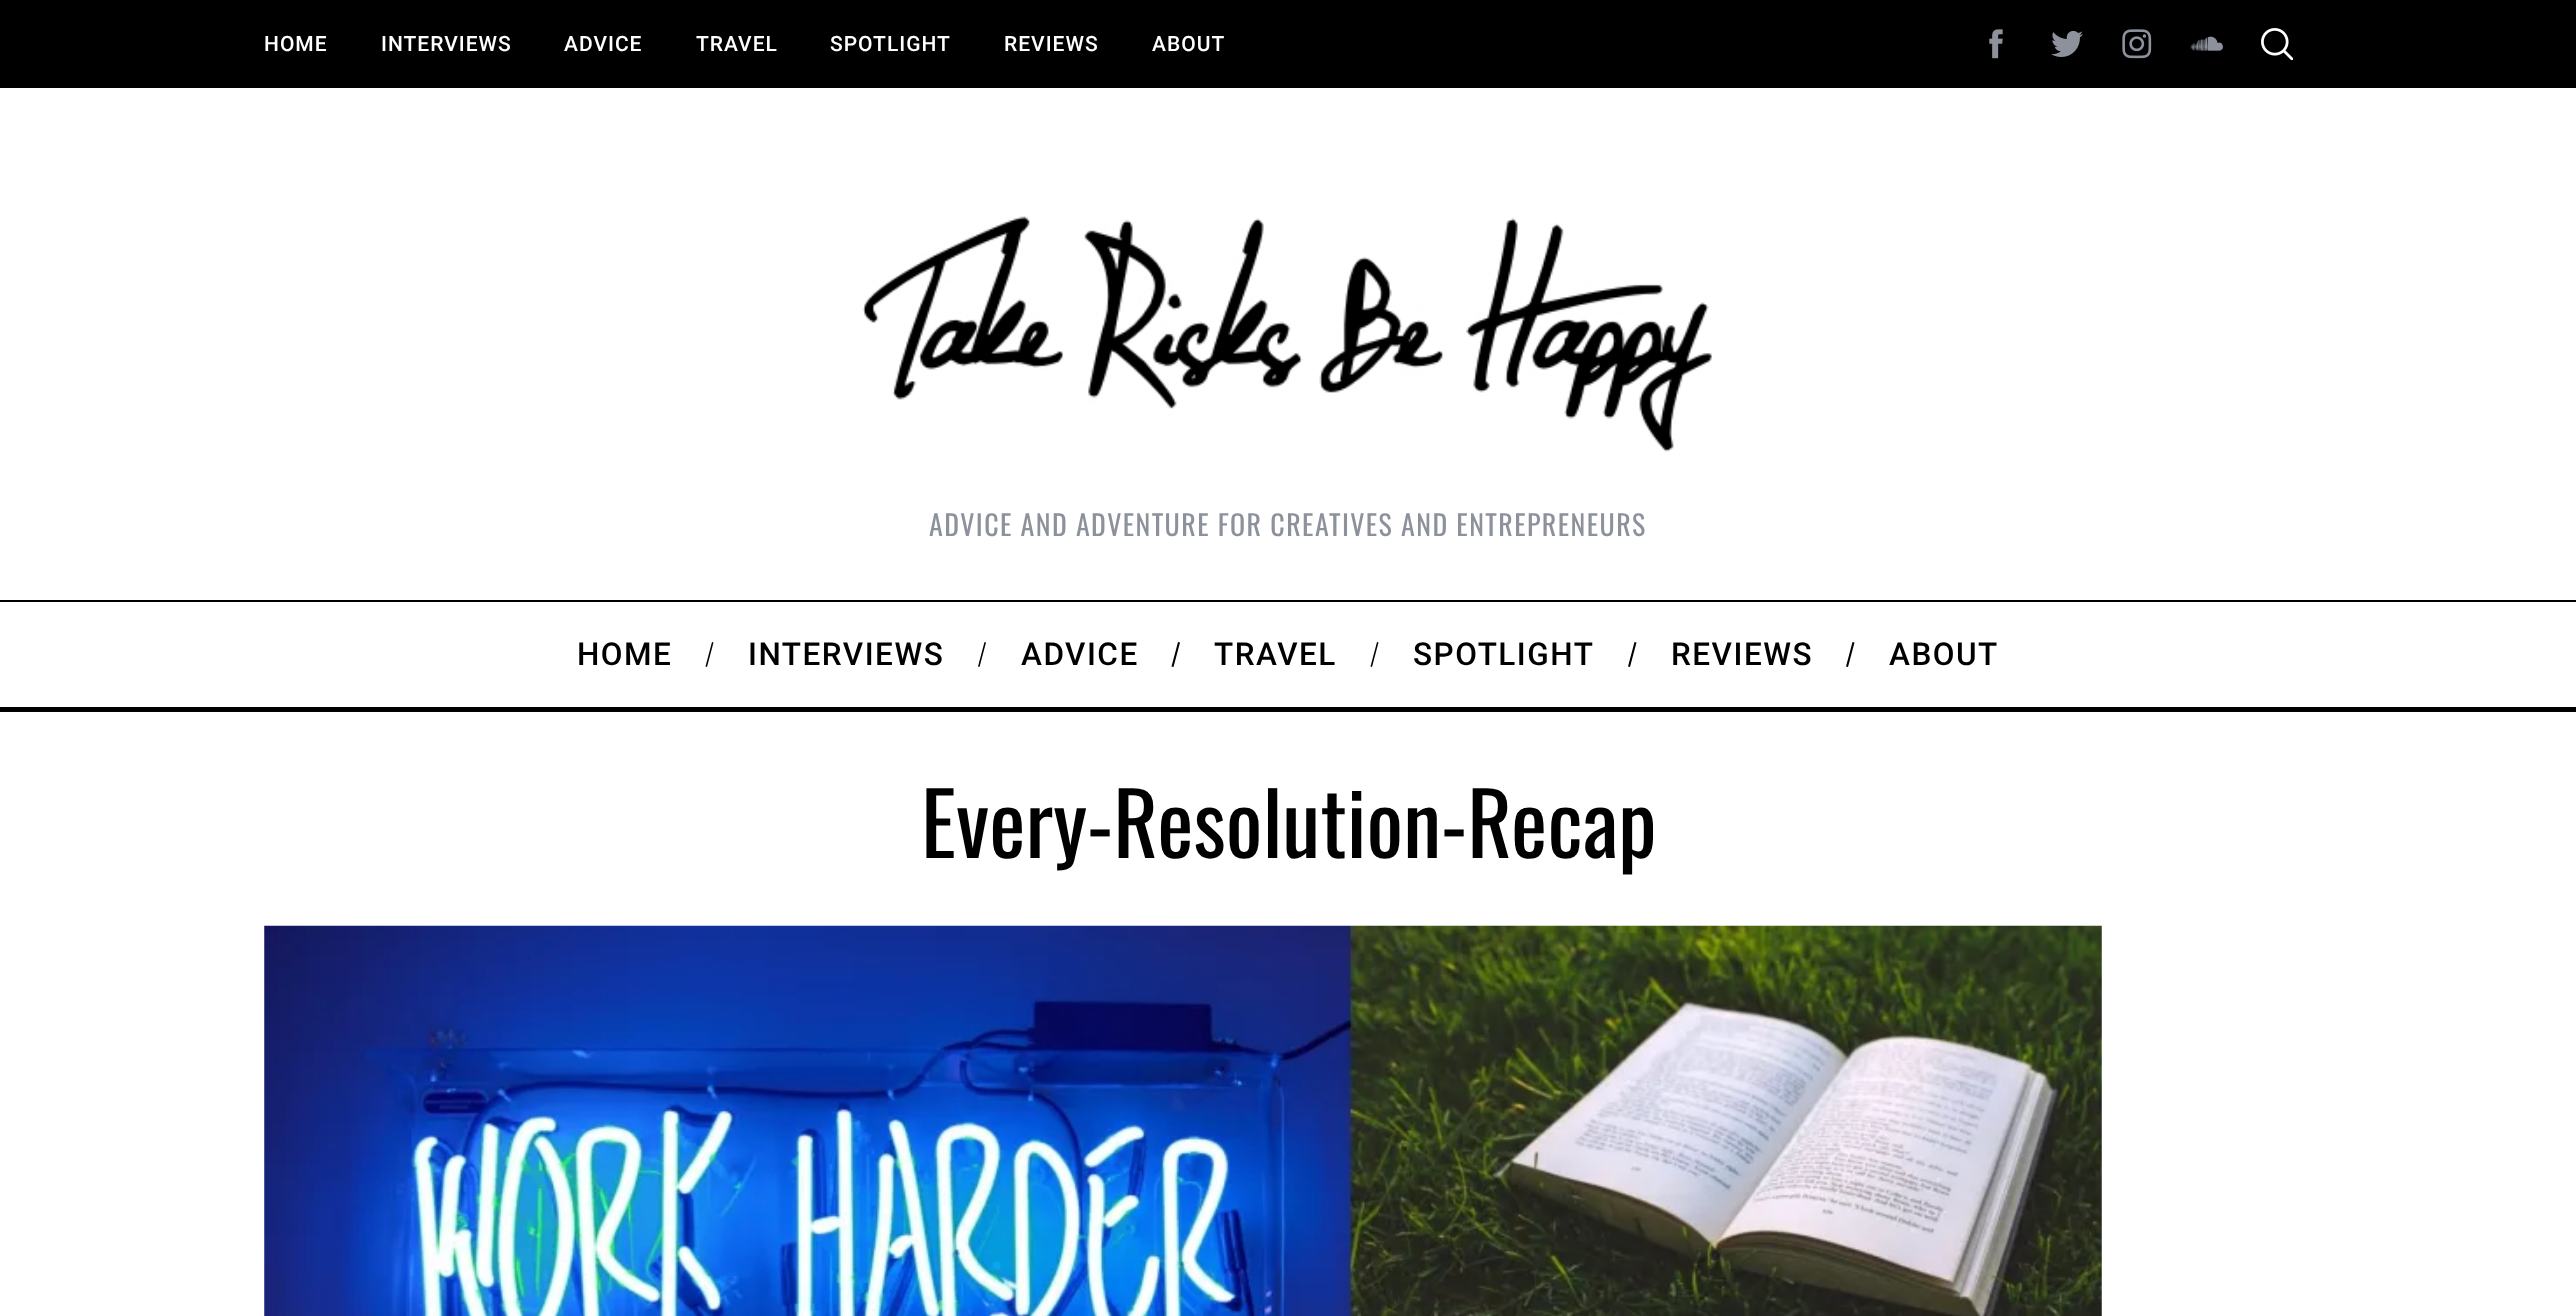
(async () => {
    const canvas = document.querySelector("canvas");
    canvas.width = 2576;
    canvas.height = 1316;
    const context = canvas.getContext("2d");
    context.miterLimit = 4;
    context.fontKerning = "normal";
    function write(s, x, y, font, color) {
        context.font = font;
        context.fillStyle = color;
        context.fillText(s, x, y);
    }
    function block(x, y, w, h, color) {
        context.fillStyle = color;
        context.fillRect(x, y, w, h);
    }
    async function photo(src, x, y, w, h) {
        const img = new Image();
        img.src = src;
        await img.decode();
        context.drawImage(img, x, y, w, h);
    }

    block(0, 0, 2576, 1316, "rgb(255, 255, 255)");
    block(0, 0, 2576, 88, "rgb(0, 0, 0)");
    context.letterSpacing = "1px";
    write("HOME", 264, 51, "500 21px Roboto", "rgb(255, 255, 255)");
    write("INTERVIEWS", 381, 51, "500 21px Roboto", "rgb(255, 255, 255)");
    write("ADVICE", 564, 51, "500 21px Roboto", "rgb(255, 255, 255)");
    write("TRAVEL", 696, 51, "500 21px Roboto", "rgb(255, 255, 255)");
    write("SPOTLIGHT", 830, 51, "500 21px Roboto", "rgb(255, 255, 255)");
    write("REVIEWS", 1004, 51, "500 21px Roboto", "rgb(255, 255, 255)");
    write("ABOUT", 1152, 51, "500 21px Roboto", "rgb(255, 255, 255)");
    await photo("media/1.png", 1989, 29, 14, 30);
    await photo("media/2.png", 2051, 30, 32, 27);
    await photo("media/3.png", 2122, 29, 30, 30);
    await photo("media/4.png", 2190, 36, 33, 15);
    await photo("media/5.png", 2261, 28, 32, 32);
    await photo("media/6.png", 862, 216, 850, 236);
    context.letterSpacing = "1.4px";
    write("ADVICE AND ADVENTURE FOR CREATIVES AND ENTREPRENEURS", 929, 536, "28px Oswald", "rgb(140, 145, 155)");
    block(0, 600, 2576, 2, "rgb(0, 0, 0)");
    block(0, 707, 2576, 5, "rgb(0, 0, 0)");
    context.letterSpacing = "1.5px";
    write("HOME", 577, 665, "500 31.5px Roboto", "rgb(0, 0, 0)");
    context.beginPath();
    context.moveTo(712, 642);
    context.lineTo(713.5, 642.5);
    context.lineTo(707, 667);
    context.lineTo(705.5, 666.5);
    context.closePath();
    context.fill();
    write("INTERVIEWS", 748, 665, "500 31.5px Roboto", "rgb(0, 0, 0)");
    context.beginPath();
    context.moveTo(984.5, 642);
    context.lineTo(986, 642.5);
    context.lineTo(979.5, 667);
    context.lineTo(978, 666.5);
    context.closePath();
    context.fill();
    write("ADVICE", 1021, 665, "500 31.5px Roboto", "rgb(0, 0, 0)");
    context.beginPath();
    context.moveTo(1178, 642);
    context.lineTo(1180, 642.5);
    context.lineTo(1173.5, 667);
    context.lineTo(1171.5, 666.5);
    context.closePath();
    context.fill();
    write("TRAVEL", 1214, 665, "500 31.5px Roboto", "rgb(0, 0, 0)");
    context.beginPath();
    context.moveTo(1377, 642);
    context.lineTo(1378.5, 642.5);
    context.lineTo(1372, 667);
    context.lineTo(1370.5, 666.5);
    context.closePath();
    context.fill();
    write("SPOTLIGHT", 1413, 665, "500 31.5px Roboto", "rgb(0, 0, 0)");
    context.beginPath();
    context.moveTo(1634.5, 642);
    context.lineTo(1636.5, 642.5);
    context.lineTo(1630, 667);
    context.lineTo(1628, 666.5);
    context.closePath();
    context.fill();
    write("REVIEWS", 1671, 665, "500 31.5px Roboto", "rgb(0, 0, 0)");
    context.beginPath();
    context.moveTo(1852.5, 642);
    context.lineTo(1854.5, 642.5);
    context.lineTo(1848, 667);
    context.lineTo(1846, 666.5);
    context.closePath();
    context.fill();
    write("ABOUT", 1889, 665, "500 31.5px Roboto", "rgb(0, 0, 0)");
    context.letterSpacing = "0px";
    write("Every-Resolution-Recap", 921, 858, "86.25px Oswald", "rgb(0, 0, 0)");
    await photo("media/7.png", 264, 925, 1838, 391);
})();
